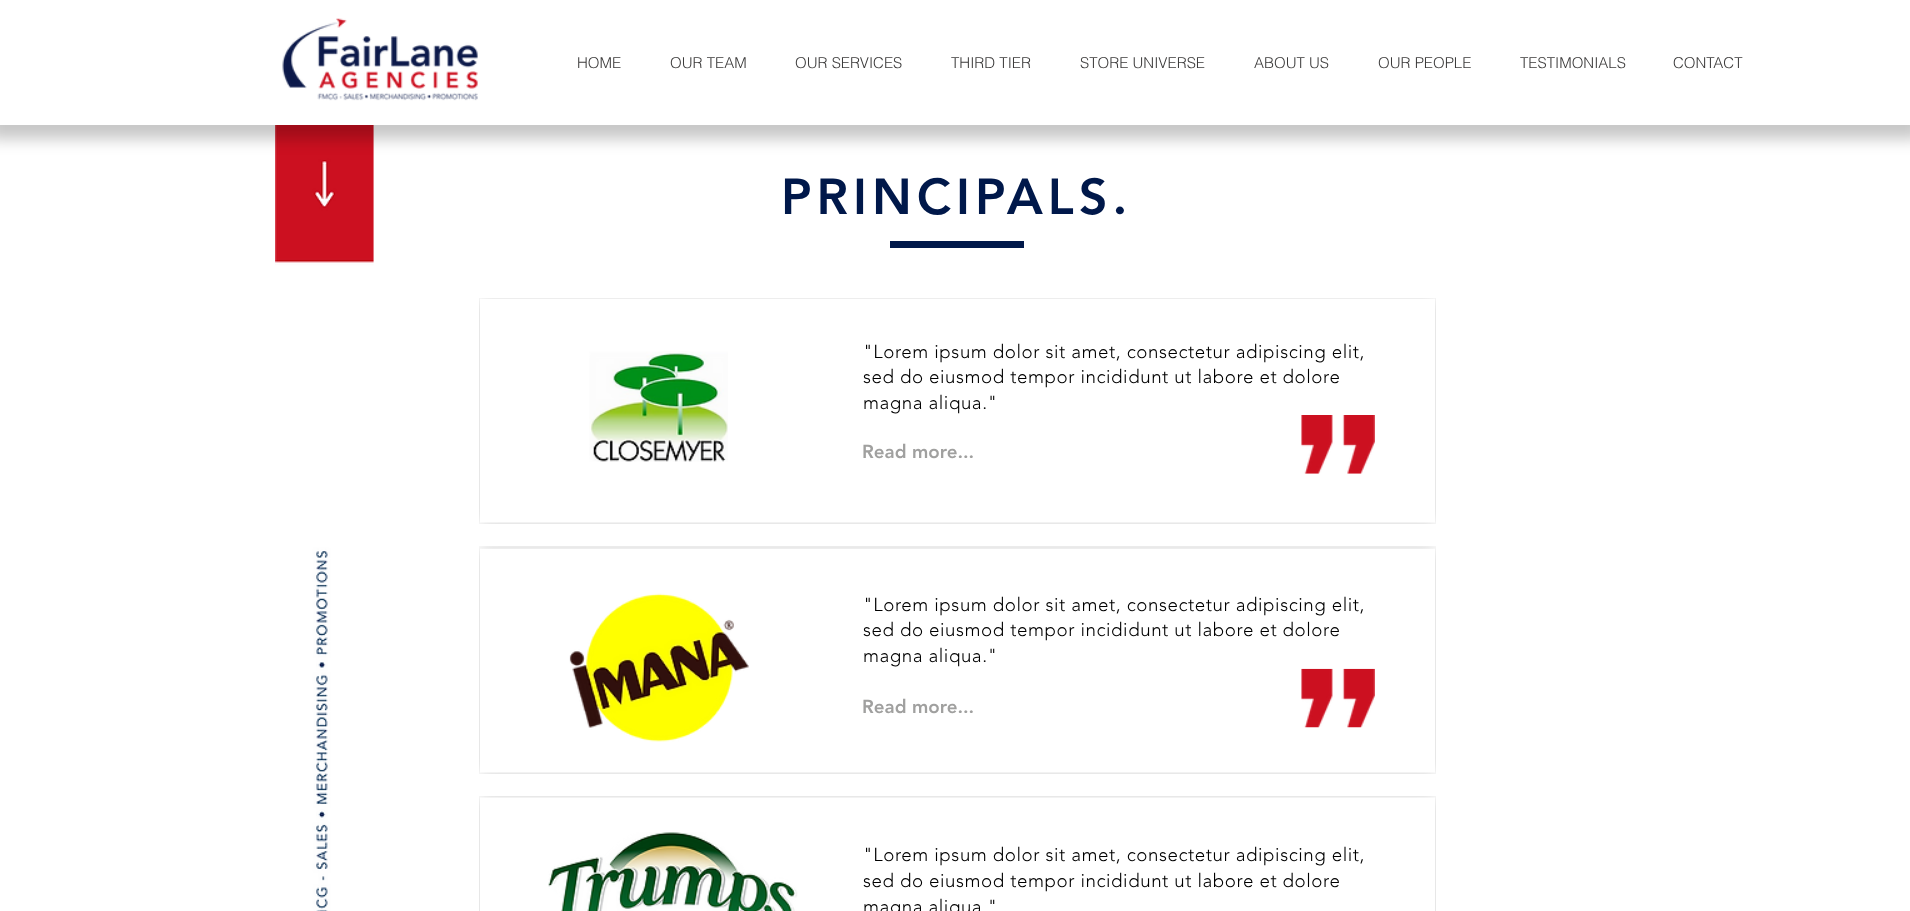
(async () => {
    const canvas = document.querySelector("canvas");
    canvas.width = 1910;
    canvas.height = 911;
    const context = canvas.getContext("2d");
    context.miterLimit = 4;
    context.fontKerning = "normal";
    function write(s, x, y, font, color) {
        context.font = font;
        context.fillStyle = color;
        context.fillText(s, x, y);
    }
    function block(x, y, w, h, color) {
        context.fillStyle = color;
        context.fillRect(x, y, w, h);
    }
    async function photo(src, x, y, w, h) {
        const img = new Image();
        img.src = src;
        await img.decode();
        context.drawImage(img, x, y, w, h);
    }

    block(0, 0, 1910, 911, "rgb(255, 255, 255)");
    await photo("media/2.png", 275, 125, 99, 786);
    context.fillStyle = "rgba(0, 0, 0, 0.22)";
    context.filter = "blur(7.5px)";
    context.beginPath();
    context.rect(-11, -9, 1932, 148);
    context.fill();
    context.filter = "none";
    block(0, 0, 1910, 125, "rgb(255, 255, 255)");
    await photo("media/1.png", 282, 18, 196, 83);
    write("HOME", 577, 68, "300 15px helvetica", "rgb(59, 58, 58)");
    write("OUR TEAM", 670, 68, "300 15px helvetica", "rgb(59, 58, 58)");
    write("OUR SERVICES", 795, 68, "300 15px helvetica", "rgb(59, 58, 58)");
    write("THIRD TIER", 951, 68, "300 15px helvetica", "rgb(59, 58, 58)");
    write("STORE UNIVERSE", 1080, 68, "300 15px helvetica", "rgb(59, 58, 58)");
    write("ABOUT US", 1254, 68, "300 15px helvetica", "rgb(59, 58, 58)");
    write("OUR PEOPLE", 1378, 68, "300 15px helvetica", "rgb(59, 58, 58)");
    write("TESTIMONIALS", 1520, 68, "300 15px helvetica", "rgb(59, 58, 58)");
    write("CONTACT", 1673, 68, "300 15px helvetica", "rgb(59, 58, 58)");
    context.letterSpacing = "5px";
    write("PRINCIPALS.", 781, 214, "900 50px 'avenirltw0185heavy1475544'", "rgb(0, 24, 74)");
    block(890, 241, 134, 7, "rgb(0, 24, 74)");
    await photo("media/3.png", 479, 298, 957, 226);
    await photo("media/4.png", 589, 351, 139, 111);
    context.letterSpacing = "0.55px";
    write("\"Lorem ipsum dolor sit amet, consectetur adipiscing elit,", 863, 358, "300 18.75px 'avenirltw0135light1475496'", "rgb(0, 0, 0)");
    write("sed do eiusmod tempor incididunt ut labore et dolore", 863, 383, "300 18.75px 'avenirltw0135light1475496'", "rgb(0, 0, 0)");
    write("magna aliqua.\"", 863, 409, "300 18.75px 'avenirltw0135light1475496'", "rgb(0, 0, 0)");
    context.letterSpacing = "0px";
    write("Read more...", 862, 458, "900 18.75px 'avenirltw0185heavy1475544'", "rgb(160, 160, 159)");
    await photo("media/5.png", 1301, 415, 74, 59);
    await photo("media/6.png", 479, 546, 957, 228);
    await photo("media/7.png", 569, 593, 180, 149);
    context.letterSpacing = "0.55px";
    write("\"Lorem ipsum dolor sit amet, consectetur adipiscing elit,", 863, 611, "300 18.75px 'avenirltw0135light1475496'", "rgb(0, 0, 0)");
    write("sed do eiusmod tempor incididunt ut labore et dolore", 863, 636, "300 18.75px 'avenirltw0135light1475496'", "rgb(0, 0, 0)");
    write("magna aliqua.\"", 863, 662, "300 18.75px 'avenirltw0135light1475496'", "rgb(0, 0, 0)");
    context.letterSpacing = "0px";
    write("Read more...", 862, 713, "900 18.75px 'avenirltw0185heavy1475544'", "rgb(160, 160, 159)");
    await photo("media/8.png", 1301, 668, 74, 60);
    await photo("media/9.png", 479, 796, 957, 115);
    await photo("media/10.png", 548, 832, 250, 79);
    context.letterSpacing = "0.55px";
    write("\"Lorem ipsum dolor sit amet, consectetur adipiscing elit,", 863, 861, "300 18.75px 'avenirltw0135light1475496'", "rgb(0, 0, 0)");
    write("sed do eiusmod tempor incididunt ut labore et dolore", 863, 887, "300 18.75px 'avenirltw0135light1475496'", "rgb(0, 0, 0)");
    write("magna aliqua.\"", 863, 913, "300 18.75px 'avenirltw0135light1475496'", "rgb(0, 0, 0)");
})();
